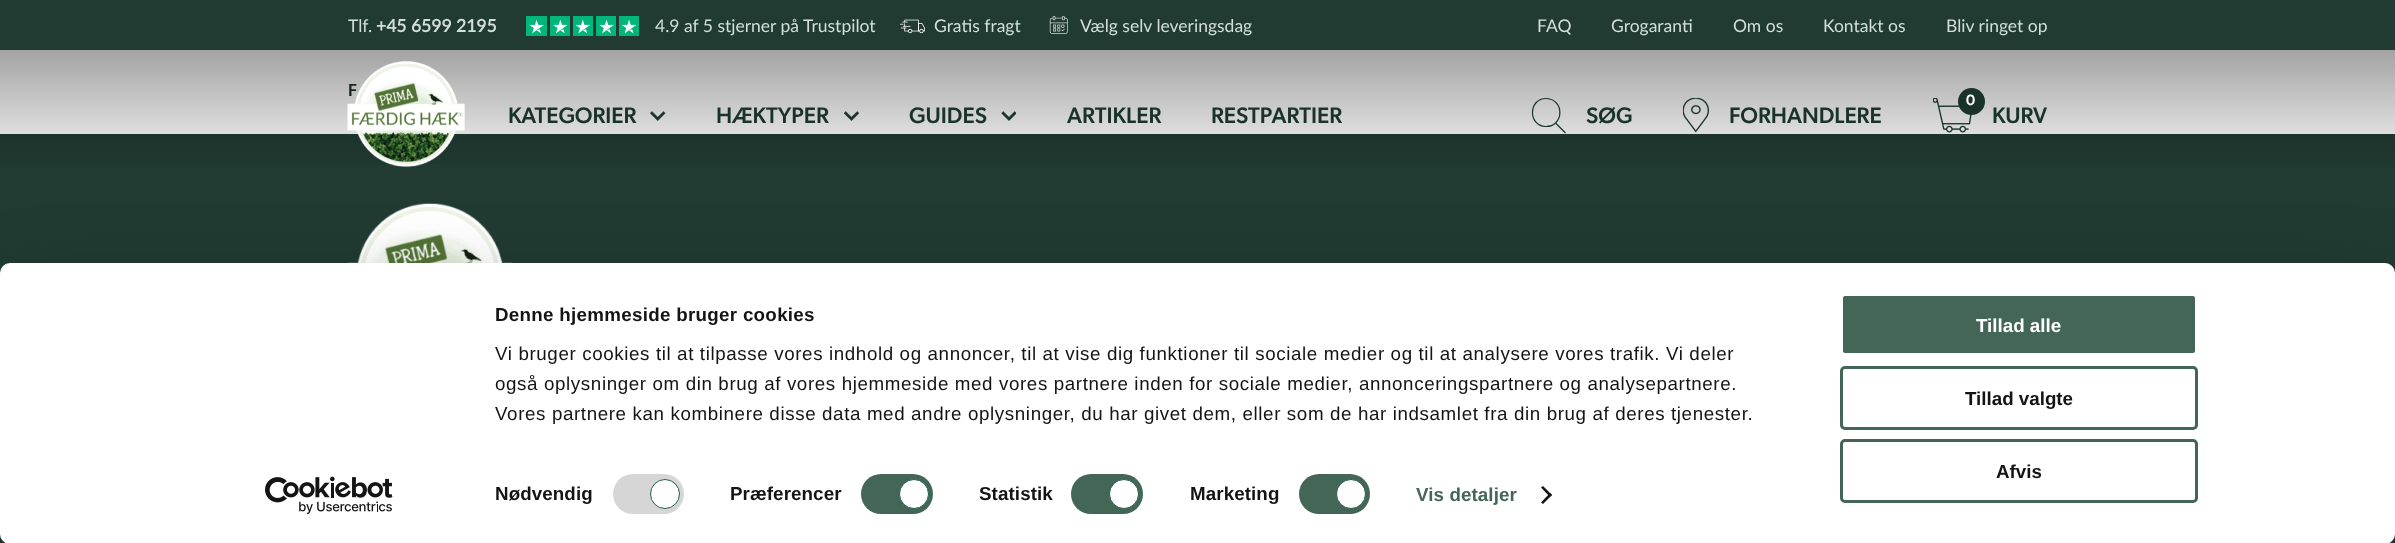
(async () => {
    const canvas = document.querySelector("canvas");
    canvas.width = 2395;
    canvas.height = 543;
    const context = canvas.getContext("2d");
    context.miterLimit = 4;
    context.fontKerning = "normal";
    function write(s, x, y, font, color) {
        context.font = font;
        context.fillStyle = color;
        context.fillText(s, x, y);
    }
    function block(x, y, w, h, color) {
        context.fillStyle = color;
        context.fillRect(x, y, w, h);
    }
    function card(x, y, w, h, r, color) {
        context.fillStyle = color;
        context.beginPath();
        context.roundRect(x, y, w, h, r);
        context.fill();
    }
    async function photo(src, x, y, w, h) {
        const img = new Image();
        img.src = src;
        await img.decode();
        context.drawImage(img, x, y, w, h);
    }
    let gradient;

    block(0, 0, 2395, 543, "rgb(255, 255, 255)");
    block(0, 0, 2395, 50, "rgb(33, 59, 50)");
    write("Tlf.", 348, 32, "17.5px Lato", "rgb(211, 223, 219)");
    write("+45 6599 2195", 376, 32, "bold 17.5px Lato", "rgb(211, 223, 219)");
    await photo("media/1.png", 526, 16, 21, 20);
    await photo("media/2.png", 550, 16, 20, 20);
    await photo("media/3.png", 573, 16, 20, 20);
    await photo("media/4.png", 596, 16, 20, 20);
    await photo("media/5.png", 619, 16, 20, 20);
    write("4.9 af 5 stjerner på Trustpilot", 655, 32, "17.5px Lato", "rgb(211, 223, 219)");
    await photo("media/6.png", 900, 19, 25, 15);
    write("Gratis fragt", 934, 32, "17.5px Lato", "rgb(211, 223, 219)");
    await photo("media/7.png", 1049, 16, 19, 18);
    write("Vælg selv leveringsdag", 1080, 32, "17.5px Lato", "rgb(211, 223, 219)");
    write("FAQ", 1537, 32, "17.5px Lato", "rgb(211, 223, 219)");
    write("Grogaranti", 1611, 32, "17.5px Lato", "rgb(211, 223, 219)");
    write("Om os", 1733, 32, "17.5px Lato", "rgb(211, 223, 219)");
    write("Kontakt os", 1823, 32, "17.5px Lato", "rgb(211, 223, 219)");
    write("Bliv ringet op", 1946, 32, "17.5px Lato", "rgb(211, 223, 219)");
    write("F", 348, 96, "500 17.5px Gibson", "rgb(25, 51, 42)");
    block(0, 134, 2395, 409, "rgb(33, 59, 50)");
    gradient = context.createLinearGradient(1198, 0, 1198, 180);
    gradient.addColorStop(0, "rgba(0, 0, 0, 0.5)");
    gradient.addColorStop(1, "rgba(0, 0, 0, 0)");
    context.fillStyle = gradient;
    context.fillRect(0, 50, 2395, 114);
    await photo("media/8.png", 347, 61, 118, 107);
    write("KATEGORIER", 508, 123, "500 22.5px Gibson", "rgb(25, 51, 42)");
    await photo("media/9.png", 650, 111, 16, 10);
    write("HÆKTYPER", 716, 123, "500 22.5px Gibson", "rgb(25, 51, 42)");
    await photo("media/10.png", 844, 111, 15, 10);
    write("GUIDES", 909, 123, "500 22.5px Gibson", "rgb(25, 51, 42)");
    await photo("media/11.png", 1001, 111, 15, 10);
    write("ARTIKLER", 1067, 123, "500 22.5px Gibson", "rgb(25, 51, 42)");
    write("RESTPARTIER", 1211, 123, "500 22.5px Gibson", "rgb(25, 51, 42)");
    context.beginPath();
    context.moveTo(1546.5, 98.5);
    context.bezierCurveTo(1565, 99.5, 1564, 127, 1545.5, 126.5);
    context.bezierCurveTo(1527.5, 125.5, 1528.5, 98, 1546.5, 98.5);
    context.closePath();
    context.moveTo(1556, 123.5);
    context.lineTo(1565.5, 133);
    context.strokeStyle = "rgb(25, 51, 42)";
    context.lineWidth = 1.2;
    context.stroke();
    write("SØG", 1586, 123, "500 22.5px Gibson", "rgb(25, 51, 42)");
    await photo("media/12.png", 1683, 98, 26, 35);
    write("FORHANDLERE", 1729, 123, "500 22.5px Gibson", "rgb(25, 51, 42)");
    await photo("media/13.png", 1933, 98, 39, 35);
    context.beginPath();
    context.arc(1971.5, 101.5, 13.5, 0, Math.PI * 2);
    context.fill();
    write("0", 1966, 105, "500 15px Gibson", "rgb(255, 255, 255)");
    write("KURV", 1992, 123, "500 22.5px Gibson", "rgb(25, 51, 42)");
    await photo("media/14.png", 347, 203, 166, 60);
    context.fillStyle = "rgba(0, 0, 0, 0.3)";
    context.filter = "blur(44px)";
    context.beginPath();
    context.roundRect(0, 300, 2395, 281, 10);
    context.fill();
    context.filter = "none";
    card(0, 263, 2395, 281, 10, "rgb(255, 255, 255)");
    context.letterSpacing = "0.3px";
    write("Denne hjemmeside bruger cookies", 495, 321, "bold 18.75px Liberation Sans", "rgb(20, 20, 20)");
    context.letterSpacing = "0.62px";
    write("Vi bruger cookies til at tilpasse vores indhold og annoncer, til at vise dig funktioner til sociale medier og til at analysere vores trafik. Vi deler", 495, 360, "18.75px Liberation Sans", "rgb(20, 20, 20)");
    write("også oplysninger om din brug af vores hjemmeside med vores partnere inden for sociale medier, annonceringspartnere og analysepartnere.", 495, 390, "18.75px Liberation Sans", "rgb(20, 20, 20)");
    write("Vores partnere kan kombinere disse data med andre oplysninger, du har givet dem, eller som de har indsamlet fra din brug af deres tjenester.", 495, 420, "18.75px Liberation Sans", "rgb(20, 20, 20)");
    context.letterSpacing = "0.1px";
    write("Nødvendig", 495, 500, "bold 18.75px Liberation Sans", "rgb(20, 20, 20)");
    card(613, 474, 71, 40, 20, "rgb(214, 214, 214)");
    context.fillStyle = "rgb(255, 255, 255)";
    context.beginPath();
    context.arc(665, 494, 14.5, 0, Math.PI * 2);
    context.fill();
    context.strokeStyle = "rgb(32, 95, 75)";
    context.lineWidth = 1;
    context.stroke();
    write("Præferencer", 730, 500, "bold 18.75px Liberation Sans", "rgb(20, 20, 20)");
    card(861, 474, 72, 40, 20, "rgb(67, 102, 87)");
    context.fillStyle = "rgb(255, 255, 255)";
    context.beginPath();
    context.arc(914, 494, 14.5, 0, Math.PI * 2);
    context.fill();
    context.stroke();
    write("Statistik", 979, 500, "bold 18.75px Liberation Sans", "rgb(20, 20, 20)");
    card(1071, 474, 72, 40, 20, "rgb(67, 102, 87)");
    context.fillStyle = "rgb(255, 255, 255)";
    context.beginPath();
    context.arc(1124, 494, 14.5, 0, Math.PI * 2);
    context.fill();
    context.stroke();
    write("Marketing", 1190, 500, "bold 18.75px Liberation Sans", "rgb(20, 20, 20)");
    card(1299, 474, 71, 40, 20, "rgb(67, 102, 87)");
    context.fillStyle = "rgb(255, 255, 255)";
    context.beginPath();
    context.arc(1351, 494, 14.5, 0, Math.PI * 2);
    context.fill();
    context.stroke();
    write("Vis detaljer", 1416, 501, "bold 18.75px Liberation Sans", "rgb(67, 102, 87)");
    context.fillStyle = "rgb(20, 20, 20)";
    context.beginPath();
    context.moveTo(1543, 486);
    context.lineTo(1552, 495);
    context.lineTo(1550, 497);
    context.lineTo(1541, 487.5);
    context.closePath();
    context.fill();
    context.beginPath();
    context.moveTo(1550, 493);
    context.lineTo(1552, 495);
    context.lineTo(1543, 504);
    context.lineTo(1541, 502.5);
    context.closePath();
    context.fill();
    context.fillStyle = "rgb(67, 102, 87)";
    context.beginPath();
    context.roundRect(1841.5, 294.5, 355, 60, 3.5);
    context.fill();
    context.strokeStyle = "rgb(255, 255, 255)";
    context.lineWidth = 3;
    context.stroke();
    context.letterSpacing = "0px";
    write("Tillad alle", 1976, 332, "bold 18.75px Liberation Sans", "rgb(255, 255, 255)");
    context.beginPath();
    context.roundRect(1841.5, 367.5, 355, 61, 3.5);
    context.strokeStyle = "rgb(67, 102, 87)";
    context.stroke();
    write("Tillad valgte", 1965, 405, "bold 18.75px Liberation Sans", "rgb(20, 20, 20)");
    context.beginPath();
    context.roundRect(1841.5, 440.5, 355, 61, 3.5);
    context.stroke();
    write("Afvis", 1996, 478, "bold 18.75px Liberation Sans", "rgb(20, 20, 20)");
    await photo("media/15.png", 265, 476, 128, 38);
})();
